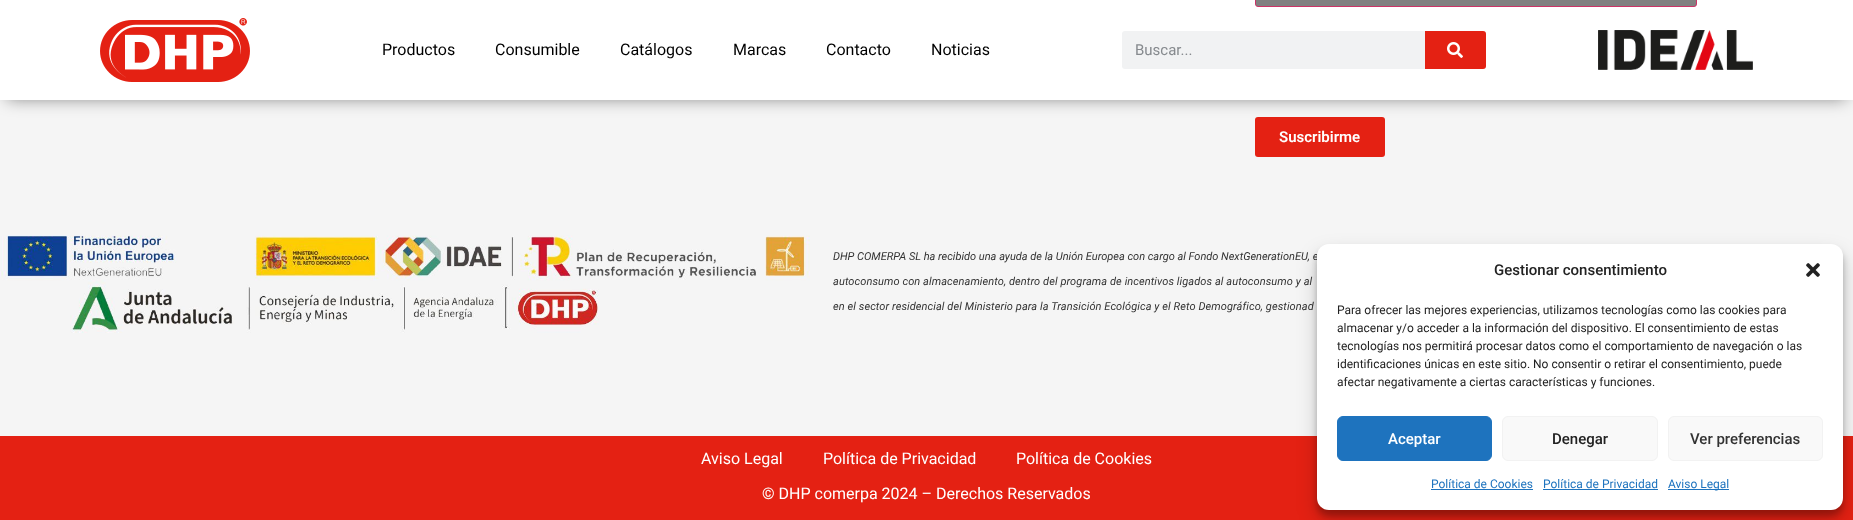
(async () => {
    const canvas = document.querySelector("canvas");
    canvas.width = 1853;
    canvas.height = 520;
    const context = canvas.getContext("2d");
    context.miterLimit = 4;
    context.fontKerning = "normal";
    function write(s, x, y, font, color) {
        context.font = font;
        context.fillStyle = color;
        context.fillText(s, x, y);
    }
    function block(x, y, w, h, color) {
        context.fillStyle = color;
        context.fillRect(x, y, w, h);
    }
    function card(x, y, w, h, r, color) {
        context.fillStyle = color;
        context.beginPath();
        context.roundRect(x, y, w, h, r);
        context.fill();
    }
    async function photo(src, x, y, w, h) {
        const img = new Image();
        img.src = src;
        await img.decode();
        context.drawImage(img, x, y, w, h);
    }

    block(0, 0, 1853, 520, "rgb(245, 245, 245)");
    card(1255, 117, 130, 40, 3, "rgb(228, 33, 19)");
    context.fillStyle = "rgba(0, 0, 0, 0.5)";
    context.filter = "blur(8.5px)";
    context.beginPath();
    context.rect(7, 12, 1839, 86);
    context.fill();
    context.filter = "none";
    block(0, 0, 1853, 100, "rgb(255, 255, 255)");
    await photo("media/1.png", 100, 18, 150, 64);
    write("Productos", 382, 55, "16px Roboto", "rgb(0, 0, 0)");
    write("Consumible", 495, 55, "16px Roboto", "rgb(0, 0, 0)");
    write("Catálogos", 620, 55, "16px Roboto", "rgb(0, 0, 0)");
    write("Marcas", 733, 55, "16px Roboto", "rgb(0, 0, 0)");
    write("Contacto", 826, 55, "16px Roboto", "rgb(0, 0, 0)");
    write("Noticias", 931, 55, "16px Roboto", "rgb(0, 0, 0)");
    card(1122, 31, 364, 38, 3, "rgb(241, 242, 243)");
    write("Buscar...", 1135, 55, "15px Roboto", "rgb(134, 138, 142)");
    context.fillStyle = "rgb(228, 33, 19)";
    context.beginPath();
    context.roundRect(1425, 31, 61, 38, [0, 3, 3, 0]);
    context.fill();
    await photo("media/2.png", 1447, 42, 16, 16);
    await photo("media/3.png", 1598, 30, 155, 40);
    context.fillStyle = "rgb(128, 128, 128)";
    context.beginPath();
    context.roundRect(1255.5, -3.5, 441, 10, 2.5);
    context.fill();
    context.strokeStyle = "rgb(204, 51, 102)";
    context.stroke();
    write("Suscribirme", 1279, 142, "600 15px Roboto", "rgb(255, 255, 255)");
    await photo("media/4.png", 0, 235, 810, 98);
    write("DHP COMERPA SL ha recibido una ayuda de la Unión Europea con cargo al Fondo NextGenerationEU, e", 833, 260, "italic 11px Roboto", "rgb(51, 51, 51)");
    context.letterSpacing = "0.1px";
    write("autoconsumo con almacenamiento, dentro del programa de incentivos ligados al autoconsumo y al", 833, 285, "italic 11px Roboto", "rgb(51, 51, 51)");
    write("en el sector residencial del Ministerio para la Transición Ecológica y el Reto Demográfico, gestionad", 833, 310, "italic 11px Roboto", "rgb(51, 51, 51)");
    block(0, 436, 1853, 84, "rgb(228, 33, 19)");
    context.letterSpacing = "0px";
    write("Aviso Legal", 701, 464, "16px Roboto", "rgb(255, 255, 255)");
    write("Política de Privacidad", 823, 464, "16px Roboto", "rgb(255, 255, 255)");
    write("Política de Cookies", 1016, 464, "16px Roboto", "rgb(255, 255, 255)");
    write("© DHP comerpa 2024 – Derechos Reservados", 762, 499, "16px Roboto", "rgb(255, 255, 255)");
    context.fillStyle = "rgba(0, 0, 0, 0.23)";
    context.filter = "blur(3px)";
    context.beginPath();
    context.roundRect(1317, 250, 526, 266, 12);
    context.fill();
    context.filter = "none";
    context.fillStyle = "rgba(0, 0, 0, 0.19)";
    context.filter = "blur(10px)";
    context.beginPath();
    context.roundRect(1317, 254, 526, 266, 12);
    context.fill();
    context.filter = "none";
    card(1317, 244, 526, 266, 12, "rgb(255, 255, 255)");
    write("Gestionar consentimiento", 1494, 275, "500 15px Roboto", "rgb(34, 34, 34)");
    await photo("media/5.png", 1806, 263, 14, 14);
    write("Para ofrecer las mejores experiencias, utilizamos tecnologías como las cookies para", 1337, 314, "12px Roboto", "rgb(34, 34, 34)");
    write("almacenar y/o acceder a la información del dispositivo. El consentimiento de estas", 1337, 332, "12px Roboto", "rgb(34, 34, 34)");
    write("tecnologías nos permitirá procesar datos como el comportamiento de navegación o las", 1337, 350, "12px Roboto", "rgb(34, 34, 34)");
    write("identificaciones únicas en este sitio. No consentir o retirar el consentimiento, puede", 1337, 368, "12px Roboto", "rgb(34, 34, 34)");
    write("afectar negativamente a ciertas características y funciones.", 1337, 386, "12px Roboto", "rgb(34, 34, 34)");
    context.fillStyle = "rgb(30, 115, 190)";
    context.beginPath();
    context.roundRect(1337.5, 416.5, 154, 44, 5.5);
    context.fill();
    context.strokeStyle = "rgb(30, 115, 190)";
    context.stroke();
    write("Aceptar", 1388, 444, "500 15px Roboto", "rgb(255, 255, 255)");
    context.fillStyle = "rgb(249, 249, 249)";
    context.beginPath();
    context.roundRect(1502.5, 416.5, 155, 44, 5.5);
    context.fill();
    context.strokeStyle = "rgb(242, 242, 242)";
    context.stroke();
    write("Denegar", 1552, 444, "500 15px Roboto", "rgb(34, 34, 34)");
    context.fillStyle = "rgb(249, 249, 249)";
    context.beginPath();
    context.roundRect(1668.5, 416.5, 154, 44, 5.5);
    context.fill();
    context.stroke();
    write("Ver preferencias", 1690, 444, "500 15px Roboto", "rgb(51, 51, 51)");
    write("Política de Cookies", 1431, 488, "12px Roboto", "rgb(30, 115, 190)");
    block(1431, 489, 102, 1, "rgb(30, 115, 190)");
    write("Política de Privacidad", 1543, 488, "12px Roboto", "rgb(30, 115, 190)");
    block(1543, 489, 115, 1, "rgb(30, 115, 190)");
    block(1668, 489, 61, 1, "rgb(30, 115, 190)");
    write("Aviso Legal", 1668, 488, "12px Roboto", "rgb(30, 115, 190)");
})();
